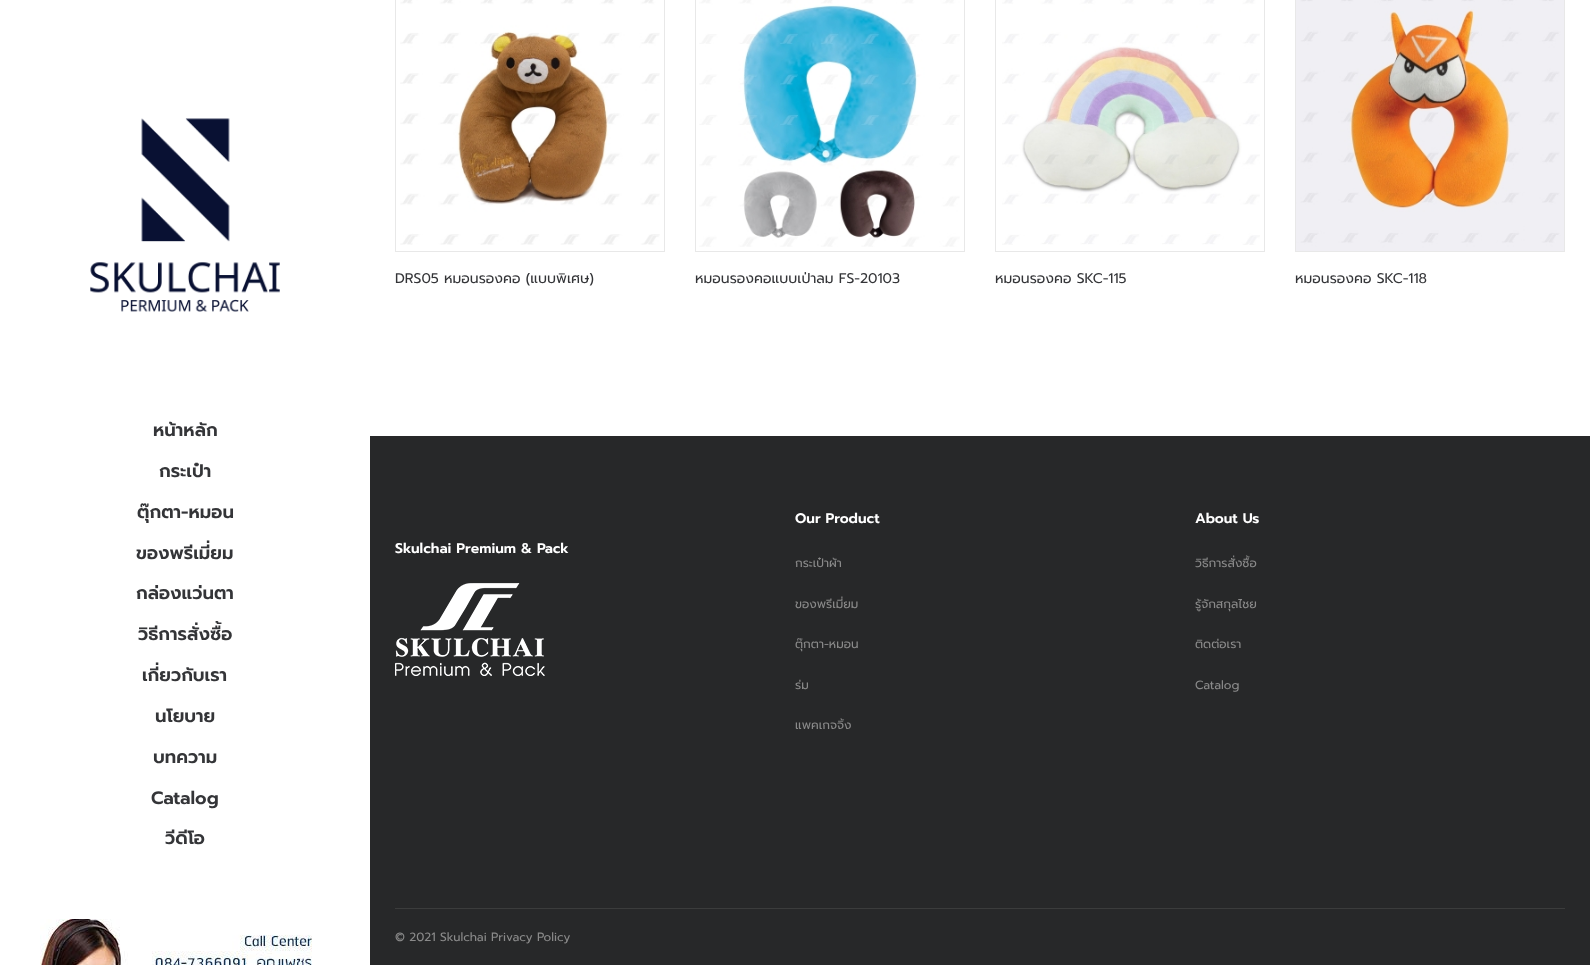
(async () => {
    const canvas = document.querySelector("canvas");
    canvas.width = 1590;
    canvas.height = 965;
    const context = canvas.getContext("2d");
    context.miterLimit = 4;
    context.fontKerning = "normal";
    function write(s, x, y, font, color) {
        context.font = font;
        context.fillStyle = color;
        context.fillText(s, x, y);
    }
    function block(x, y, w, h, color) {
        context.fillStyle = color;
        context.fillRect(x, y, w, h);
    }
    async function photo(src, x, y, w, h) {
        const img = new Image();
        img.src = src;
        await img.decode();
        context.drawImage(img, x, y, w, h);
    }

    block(0, 0, 1590, 965, "rgb(255, 255, 255)");
    context.strokeStyle = "rgb(232, 232, 232)";
    context.strokeRect(395.5, -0.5, 269, 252);
    await photo("media/1.png", 400, 0, 260, 245);
    write("DRS05 หมอนรองคอ (แบบพิเศษ)", 395, 283, "14px Prompt", "rgb(52, 53, 56)");
    context.strokeRect(695.5, -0.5, 269, 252);
    await photo("media/2.png", 699, 0, 261, 247);
    write("หมอนรองคอแบบเป่าลม FS-20103", 695, 283, "14px Prompt", "rgb(52, 53, 56)");
    context.strokeRect(995.5, -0.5, 269, 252);
    await photo("media/3.png", 1002, 0, 258, 245);
    write("หมอนรองคอ SKC-115", 995, 283, "14px Prompt", "rgb(52, 53, 56)");
    context.strokeRect(1295.5, -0.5, 269, 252);
    await photo("media/4.png", 1296, 0, 268, 251);
    write("หมอนรองคอ SKC-118", 1295, 283, "14px Prompt", "rgb(52, 53, 56)");
    await photo("media/5.png", 90, 118, 190, 194);
    write("หน้าหลัก", 153, 436, "600 18px Prompt", "rgb(52, 53, 56)");
    write("กระเป๋า", 159, 477, "600 18px Prompt", "rgb(52, 53, 56)");
    write("ตุ๊กตา-หมอน", 137, 518, "600 18px Prompt", "rgb(52, 53, 56)");
    write("ของพรีเมี่ยม", 136, 559, "600 18px Prompt", "rgb(52, 53, 56)");
    write("กล่องแว่นตา", 136, 599, "600 18px Prompt", "rgb(52, 53, 56)");
    write("วิธีการสั่งซื้อ", 138, 640, "600 18px Prompt", "rgb(52, 53, 56)");
    write("เกี่ยวกับเรา", 142, 681, "600 18px Prompt", "rgb(52, 53, 56)");
    write("นโยบาย", 155, 722, "600 18px Prompt", "rgb(52, 53, 56)");
    write("บทความ", 153, 763, "600 18px Prompt", "rgb(52, 53, 56)");
    write("Catalog", 151, 804, "600 18px Prompt", "rgb(52, 53, 56)");
    write("วีดีโอ", 165, 844, "600 18px Prompt", "rgb(52, 53, 56)");
    await photo("media/6.png", 40, 919, 272, 46);
    block(370, 436, 1220, 529, "rgb(39, 40, 41)");
    write("Skulchai Premium & Pack", 395, 553, "600 14px Prompt", "rgb(255, 255, 255)");
    await photo("media/7.png", 395, 583, 150, 93);
    write("Our Product", 795, 523, "600 14px Prompt", "rgb(255, 255, 255)");
    write("กระเป๋าผ้า", 795, 567, "12px Prompt", "rgb(138, 138, 138)");
    write("ของพรีเมี่ยม", 795, 608, "12px Prompt", "rgb(138, 138, 138)");
    write("ตุ๊กตา-หมอน", 795, 648, "12px Prompt", "rgb(138, 138, 138)");
    write("ร่ม", 795, 689, "12px Prompt", "rgb(138, 138, 138)");
    write("แพคเกจจิ้ง", 795, 729, "12px Prompt", "rgb(138, 138, 138)");
    write("About Us", 1195, 523, "600 14px Prompt", "rgb(255, 255, 255)");
    write("วิธีการสั่งซื้อ", 1195, 567, "12px Prompt", "rgb(138, 138, 138)");
    write("รู้จักสกุลไชย", 1195, 608, "12px Prompt", "rgb(138, 138, 138)");
    write("ติดต่อเรา", 1195, 648, "12px Prompt", "rgb(138, 138, 138)");
    write("Catalog", 1195, 689, "12px Prompt", "rgb(138, 138, 138)");
    block(395, 908, 1170, 1, "rgb(59, 60, 60)");
    write("© 2021 Skulchai Privacy Policy", 395, 941, "12px Prompt", "rgb(138, 138, 138)");
})();
